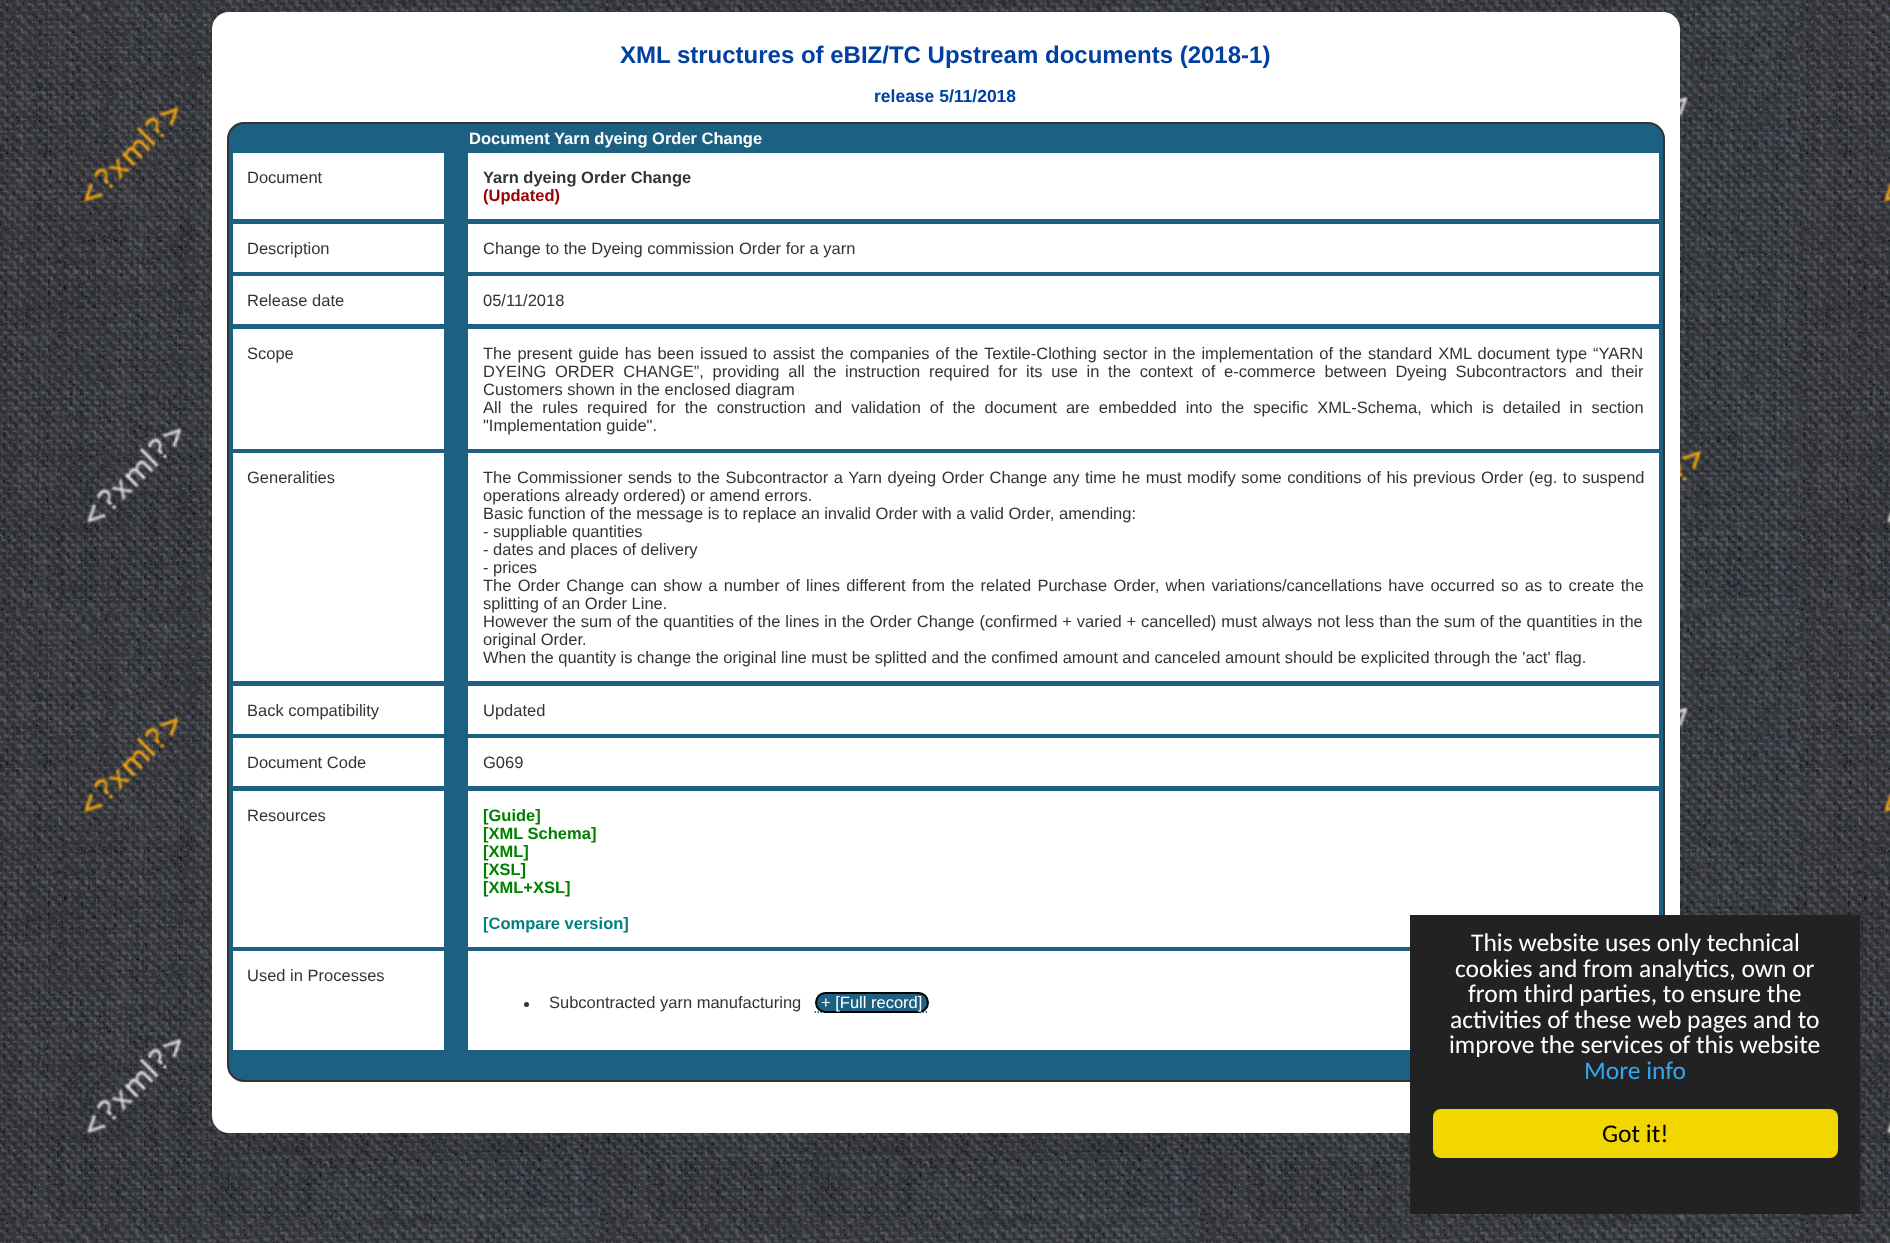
(async () => {
    const canvas = document.querySelector("canvas");
    canvas.width = 1890;
    canvas.height = 1243;
    const context = canvas.getContext("2d");
    context.miterLimit = 4;
    context.fontKerning = "normal";
    function write(s, x, y, font, color) {
        context.font = font;
        context.fillStyle = color;
        context.fillText(s, x, y);
    }
    function block(x, y, w, h, color) {
        context.fillStyle = color;
        context.fillRect(x, y, w, h);
    }
    function card(x, y, w, h, r, color) {
        context.fillStyle = color;
        context.beginPath();
        context.roundRect(x, y, w, h, r);
        context.fill();
    }
    async function photo(src, x, y, w, h) {
        const img = new Image();
        img.src = src;
        await img.decode();
        context.drawImage(img, x, y, w, h);
    }

    block(0, 0, 1890, 1243, "rgb(255, 255, 255)");
    await photo("media/1.png", 0, 0, 1890, 1243);
    await photo("media/2.png", 211, 12, 1469, 1145);
    card(212, 12, 1468, 1121, 17, "rgb(255, 255, 255)");
    write("XML structures of eBIZ/TC Upstream documents (2018-1)", 620, 63, "bold 24px Liberation Sans", "rgb(0, 64, 160)");
    write("release 5/11/2018", 874, 102, "bold 17.5px Liberation Sans", "rgb(0, 64, 160)");
    context.fillStyle = "rgb(28, 96, 130)";
    context.beginPath();
    context.roundRect(228, 123, 1436, 958, 16);
    context.fill();
    context.strokeStyle = "rgb(51, 51, 51)";
    context.lineWidth = 2;
    context.stroke();
    write("Document Yarn dyeing Order Change", 469, 144, "bold 16.5px Liberation Sans", "rgb(255, 255, 255)");
    block(233, 153, 211, 66, "rgb(255, 255, 255)");
    write("Document", 247, 183, "16.5px Liberation Sans", "rgb(51, 51, 51)");
    block(468, 153, 1191, 66, "rgb(255, 255, 255)");
    write("Yarn dyeing Order Change", 483, 183, "bold 16.5px Liberation Sans", "rgb(51, 51, 51)");
    write("(Updated)", 483, 201, "bold 16.5px Liberation Sans", "rgb(153, 0, 0)");
    block(233, 224, 211, 48, "rgb(255, 255, 255)");
    write("Description", 247, 254, "16.5px Liberation Sans", "rgb(51, 51, 51)");
    block(468, 224, 1191, 48, "rgb(255, 255, 255)");
    write("Change to the Dyeing commission Order for a yarn", 483, 254, "16.5px Liberation Sans", "rgb(51, 51, 51)");
    block(233, 276, 211, 48, "rgb(255, 255, 255)");
    write("Release date", 247, 306, "16.5px Liberation Sans", "rgb(51, 51, 51)");
    block(468, 276, 1191, 48, "rgb(255, 255, 255)");
    write("05/11/2018", 483, 306, "16.5px Liberation Sans", "rgb(51, 51, 51)");
    block(233, 329, 211, 120, "rgb(255, 255, 255)");
    write("Scope", 247, 359, "16.5px Liberation Sans", "rgb(51, 51, 51)");
    block(468, 329, 1191, 120, "rgb(255, 255, 255)");
    context.wordSpacing = "1.4px";
    write("The present guide has been issued", 483, 359, "16.5px Liberation Sans", "rgb(51, 51, 51)");
    write("to assist the companies of the Textile-Clothing sector in the implementation of the standard XML document type “YARN", 753, 359, "16.5px Liberation Sans", "rgb(51, 51, 51)");
    context.wordSpacing = "4.1px";
    write("DYEING ORDER CHANGE”, providing all the instruction required for its use in the context of e-commerce between Dyeing Subcontractors and their", 483, 377, "16.5px Liberation Sans", "rgb(51, 51, 51)");
    context.wordSpacing = "0px";
    write("Customers shown in the enclosed diagram", 483, 395, "16.5px Liberation Sans", "rgb(51, 51, 51)");
    context.wordSpacing = "4.4px";
    write("All the rules required for the construction and validation of the document are embedded into the specific XML-Schema, which is detailed in section", 483, 413, "16.5px Liberation Sans", "rgb(51, 51, 51)");
    context.wordSpacing = "0px";
    write("\"Implementation guide\".", 483, 431, "16.5px Liberation Sans", "rgb(51, 51, 51)");
    block(233, 453, 211, 228, "rgb(255, 255, 255)");
    write("Generalities", 247, 483, "16.5px Liberation Sans", "rgb(51, 51, 51)");
    block(468, 453, 1191, 228, "rgb(255, 255, 255)");
    context.wordSpacing = "1px";
    write("The Commissioner sends to the Subcontractor a Yarn dyeing Order Change any time he must modify some conditions of his previous Order (eg. to suspend", 483, 483, "16.5px Liberation Sans", "rgb(51, 51, 51)");
    context.wordSpacing = "0px";
    write("operations already ordered) or amend errors.", 483, 501, "16.5px Liberation Sans", "rgb(51, 51, 51)");
    write("Basic function of the message is to replace an invalid Order with a valid Order, amending:", 483, 519, "16.5px Liberation Sans", "rgb(51, 51, 51)");
    write("- suppliable quantities", 483, 537, "16.5px Liberation Sans", "rgb(51, 51, 51)");
    write("- dates and places of delivery", 483, 555, "16.5px Liberation Sans", "rgb(51, 51, 51)");
    write("- prices", 483, 573, "16.5px Liberation Sans", "rgb(51, 51, 51)");
    context.wordSpacing = "1.75px";
    write("The Order Change can show a number of lines different from the related Purchase Order, when variations/cancellations have occurred so as to create the", 483, 591, "16.5px Liberation Sans", "rgb(51, 51, 51)");
    context.wordSpacing = "0px";
    write("splitting of an Order Line.", 483, 609, "16.5px Liberation Sans", "rgb(51, 51, 51)");
    context.wordSpacing = "0.3px";
    write("However the sum of the quantities of the lines in the Order Change (confirmed + varied + cancelled) must always not less than the sum of the quantities in the", 483, 627, "16.5px Liberation Sans", "rgb(51, 51, 51)");
    context.wordSpacing = "0px";
    write("original Order.", 483, 645, "16.5px Liberation Sans", "rgb(51, 51, 51)");
    write("When the quantity is change the original line must be splitted and the confimed amount and canceled amount should be explicited through the 'act' flag.", 483, 663, "16.5px Liberation Sans", "rgb(51, 51, 51)");
    block(233, 686, 211, 48, "rgb(255, 255, 255)");
    write("Back compatibility", 247, 716, "16.5px Liberation Sans", "rgb(51, 51, 51)");
    block(468, 686, 1191, 48, "rgb(255, 255, 255)");
    write("Updated", 483, 716, "16.5px Liberation Sans", "rgb(51, 51, 51)");
    block(233, 738, 211, 48, "rgb(255, 255, 255)");
    write("Document Code", 247, 768, "16.5px Liberation Sans", "rgb(51, 51, 51)");
    block(468, 738, 1191, 48, "rgb(255, 255, 255)");
    write("G069", 483, 768, "16.5px Liberation Sans", "rgb(51, 51, 51)");
    block(233, 791, 211, 156, "rgb(255, 255, 255)");
    write("Resources", 247, 821, "16.5px Liberation Sans", "rgb(51, 51, 51)");
    block(468, 791, 1191, 156, "rgb(255, 255, 255)");
    write("[Guide]", 483, 821, "bold 16.5px Liberation Sans", "rgb(0, 128, 0)");
    write("[XML Schema]", 483, 839, "bold 16.5px Liberation Sans", "rgb(0, 128, 0)");
    write("[XML]", 483, 857, "bold 16.5px Liberation Sans", "rgb(0, 128, 0)");
    write("[XSL]", 483, 875, "bold 16.5px Liberation Sans", "rgb(0, 128, 0)");
    write("[XML+XSL]", 483, 893, "bold 16.5px Liberation Sans", "rgb(0, 128, 0)");
    write("[Compare version]", 483, 929, "bold 16.5px Liberation Sans", "rgb(0, 128, 128)");
    block(233, 951, 211, 99, "rgb(255, 255, 255)");
    write("Used in Processes", 247, 981, "16.5px Liberation Sans", "rgb(51, 51, 51)");
    block(468, 951, 942, 99, "rgb(255, 255, 255)");
    context.fillStyle = "rgb(51, 51, 51)";
    context.beginPath();
    context.arc(526.5, 1004.5, 2.5, 0, Math.PI * 2);
    context.fill();
    write("Subcontracted yarn manufacturing", 549, 1008, "16.5px Liberation Sans", "rgb(51, 51, 51)");
    context.beginPath();
    context.moveTo(814.5, 1012);
    context.lineTo(928.5, 1012);
    context.strokeStyle = "rgb(0, 64, 160)";
    context.lineWidth = 1.5;
    context.setLineDash([1.5, 1.5]);
    context.stroke();
    context.fillStyle = "rgb(28, 96, 130)";
    context.beginPath();
    context.roundRect(816, 993, 112, 19, 9.5);
    context.fill();
    context.strokeStyle = "rgb(0, 0, 0)";
    context.lineWidth = 2;
    context.setLineDash([]);
    context.stroke();
    write("+ [Full record]", 821, 1008, "16.5px Liberation Sans", "rgb(255, 255, 255)");
    block(1410, 915, 450, 299, "rgb(34, 34, 34)");
    write("This website uses only technical", 1471, 951, "25.5px Carlito", "rgb(255, 255, 255)");
    write("cookies and from analytics, own or", 1455, 977, "25.5px Carlito", "rgb(255, 255, 255)");
    write("from third parties, to ensure the", 1468, 1002, "25.5px Carlito", "rgb(255, 255, 255)");
    write("activities of these web pages and to", 1450, 1028, "25.5px Carlito", "rgb(255, 255, 255)");
    write("improve the services of this website", 1449, 1053, "25.5px Carlito", "rgb(255, 255, 255)");
    write("More info", 1584, 1079, "25.5px Carlito", "rgb(49, 168, 240)");
    card(1433, 1109, 405, 49, 8, "rgb(241, 214, 0)");
    write("Got it!", 1602, 1142, "25.5px Carlito", "rgb(0, 0, 0)");
})();
